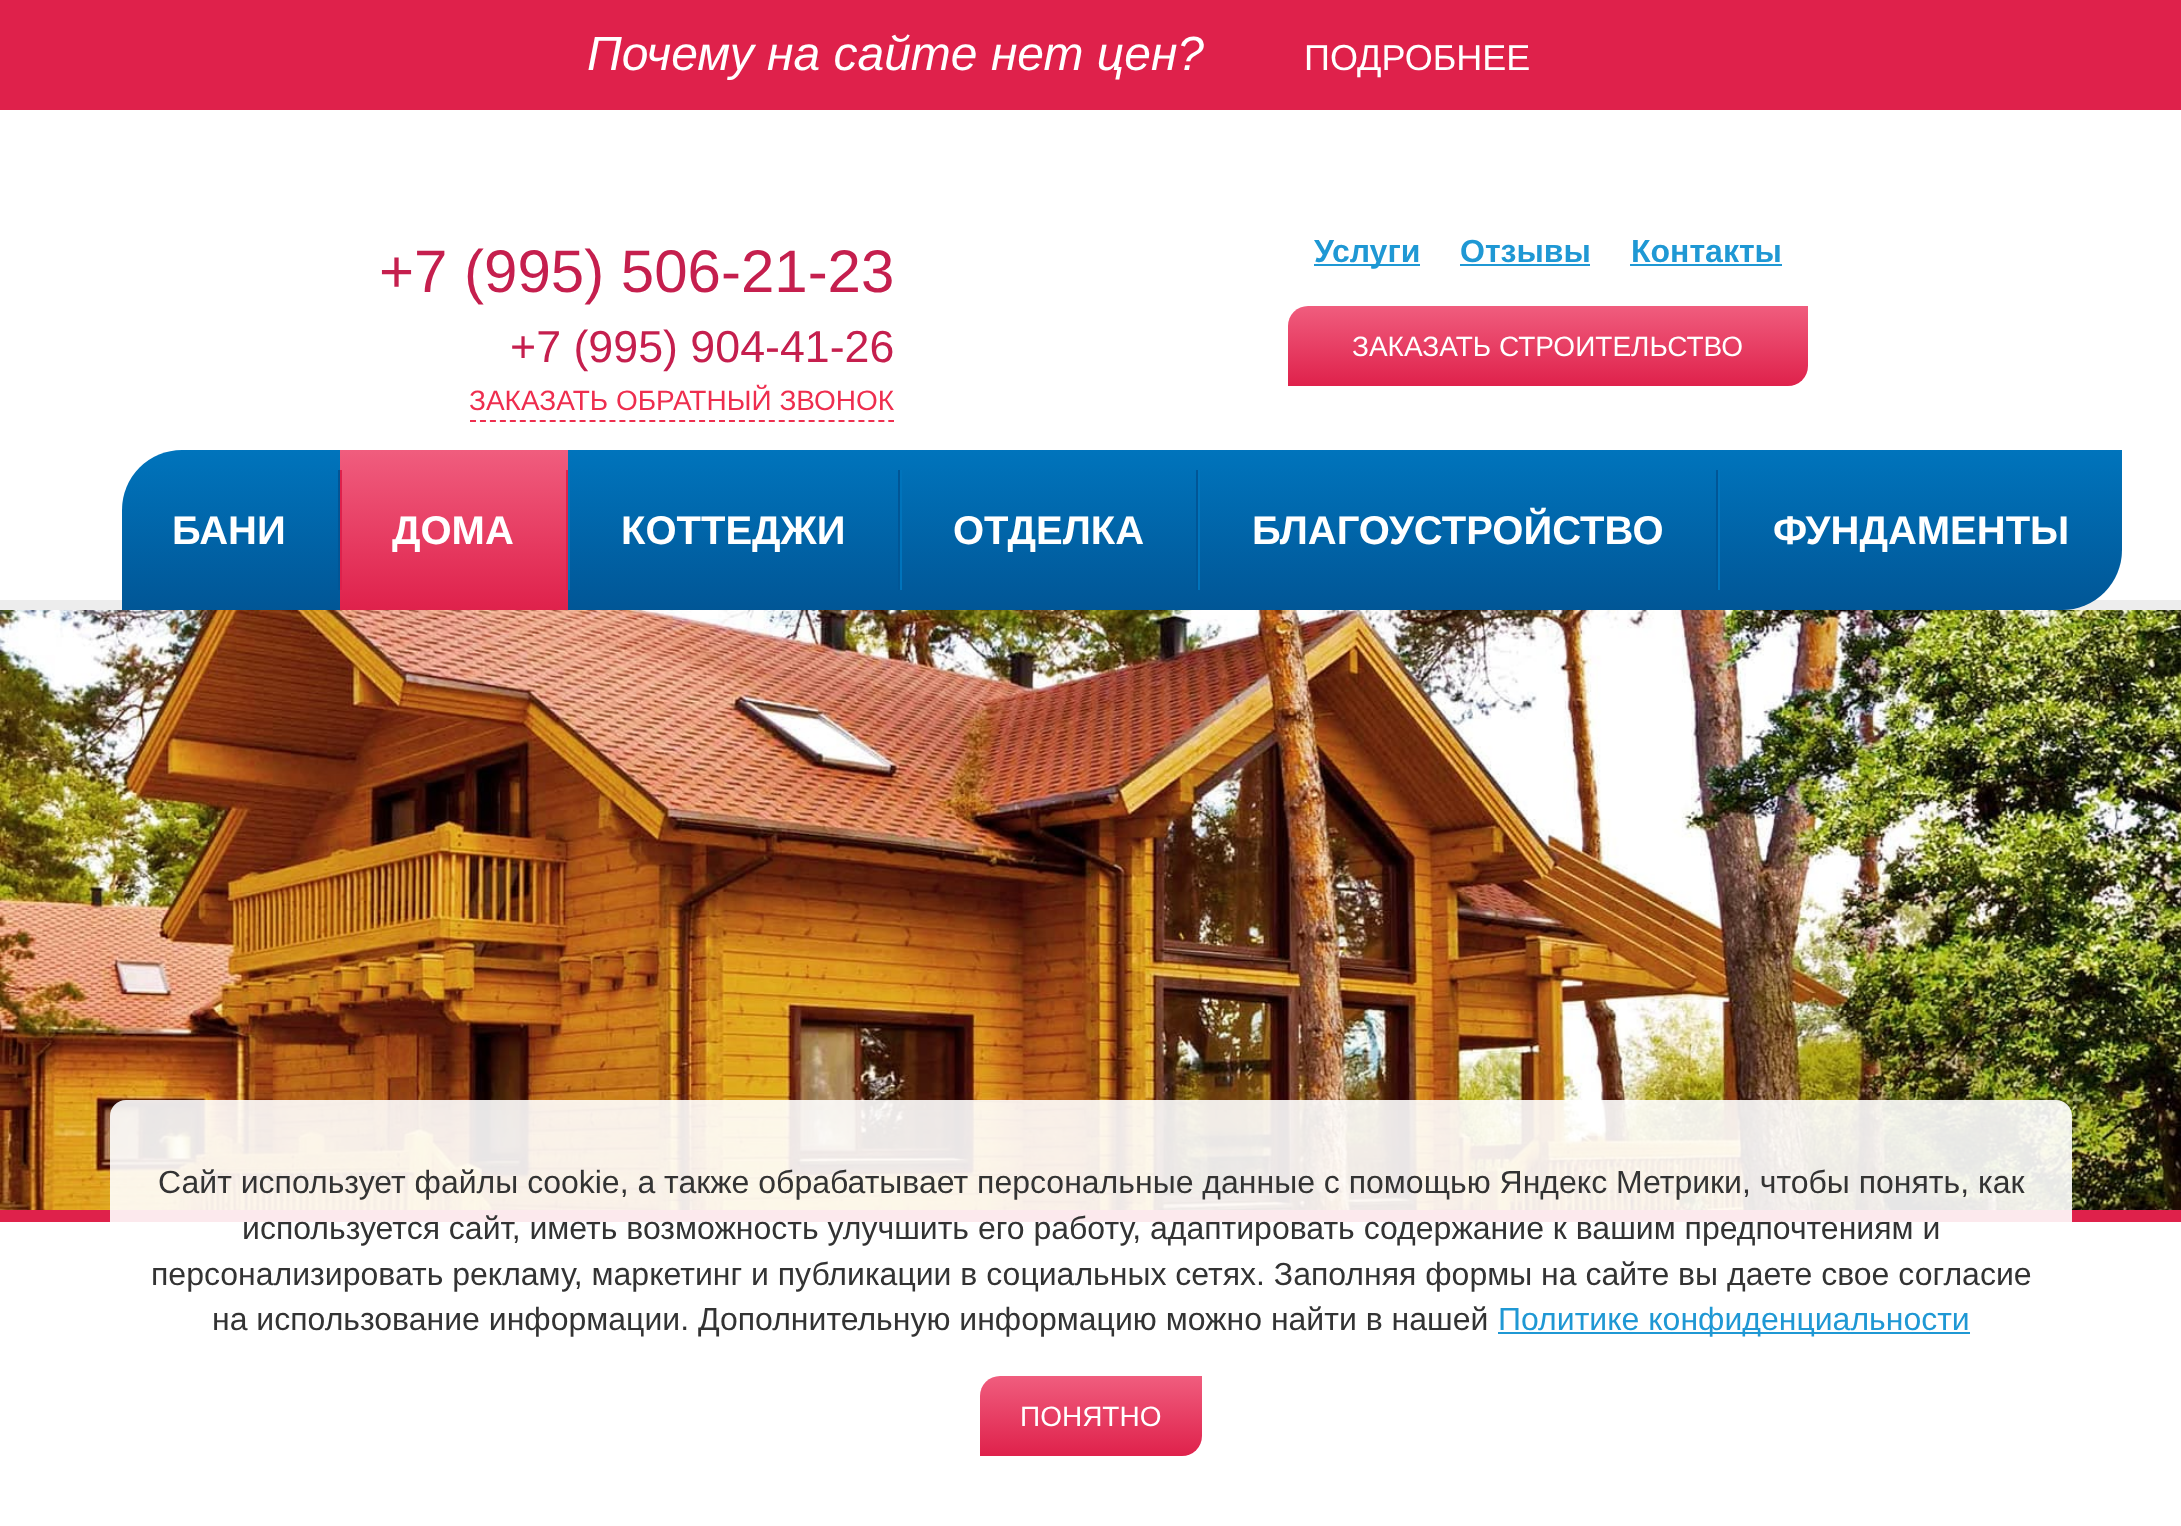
(async () => {
    const canvas = document.querySelector("canvas");
    canvas.width = 2181;
    canvas.height = 1526;
    const context = canvas.getContext("2d");
    context.miterLimit = 4;
    context.fontKerning = "normal";
    function write(s, x, y, font, color) {
        context.font = font;
        context.fillStyle = color;
        context.fillText(s, x, y);
    }
    function block(x, y, w, h, color) {
        context.fillStyle = color;
        context.fillRect(x, y, w, h);
    }
    function card(x, y, w, h, r, color) {
        context.fillStyle = color;
        context.beginPath();
        context.roundRect(x, y, w, h, r);
        context.fill();
    }
    async function photo(src, x, y, w, h) {
        const img = new Image();
        img.src = src;
        await img.decode();
        context.drawImage(img, x, y, w, h);
    }
    let gradient;

    block(0, 0, 2181, 1526, "rgb(255, 255, 255)");
    block(0, 0, 2181, 110, "rgb(223, 33, 75)");
    write("Почему на сайте нет цен?", 587, 70, "italic 48px Liberation Sans", "rgb(255, 255, 255)");
    write("ПОДРОБНЕЕ", 1304, 70, "36px Liberation Sans", "rgb(255, 255, 255)");
    write("+7 (995) 506-21-23", 379, 292, "60px Liberation Sans", "rgb(197, 31, 78)");
    write("+7 (995) 904-41-26", 510, 362, "44.75px Liberation Sans", "rgb(197, 31, 78)");
    context.beginPath();
    context.moveTo(470, 421);
    context.lineTo(894, 421);
    context.strokeStyle = "rgb(238, 46, 79)";
    context.lineWidth = 2;
    context.setLineDash([6, 3.96]);
    context.stroke();
    write("ЗАКАЗАТЬ ОБРАТНЫЙ ЗВОНОК", 469, 410, "28px Liberation Sans", "rgb(238, 46, 79)");
    block(1314, 264, 106, 2, "rgb(31, 152, 212)");
    write("Услуги", 1314, 262, "bold 32px Liberation Sans", "rgb(31, 152, 212)");
    write("Отзывы", 1460, 262, "bold 32px Liberation Sans", "rgb(31, 152, 212)");
    block(1460, 264, 130, 2, "rgb(31, 152, 212)");
    write("Контакты", 1631, 262, "bold 32px Liberation Sans", "rgb(31, 152, 212)");
    block(1630, 264, 152, 2, "rgb(31, 152, 212)");
    gradient = context.createLinearGradient(1548, 306, 1548, 386);
    gradient.addColorStop(0, "rgb(240, 93, 126)");
    gradient.addColorStop(1, "rgb(223, 33, 75)");
    context.fillStyle = gradient;
    context.beginPath();
    context.roundRect(1288, 306, 520, 80, [20, 0, 20, 0]);
    context.fill();
    write("ЗАКАЗАТЬ СТРОИТЕЛЬСТВО", 1352, 356, "28px Liberation Sans", "rgb(255, 255, 255)");
    block(0, 600, 2181, 10, "rgb(237, 237, 237)");
    gradient = context.createLinearGradient(231, 450, 231, 610);
    gradient.addColorStop(0, "rgb(0, 116, 188)");
    gradient.addColorStop(1, "rgb(1, 86, 150)");
    context.fillStyle = gradient;
    context.beginPath();
    context.roundRect(122, 450, 218, 160, [60, 0, 0, 0]);
    context.fill();
    block(338, 470, 2, 120, "rgb(1, 86, 150)");
    write("БАНИ", 172, 544, "bold 40px Liberation Sans", "rgb(255, 255, 255)");
    gradient = context.createLinearGradient(454, 450, 454, 610);
    gradient.addColorStop(0, "rgb(240, 93, 126)");
    gradient.addColorStop(1, "rgb(223, 33, 75)");
    context.fillStyle = gradient;
    context.fillRect(340, 450, 228, 160);
    block(566, 470, 2, 120, "rgb(223, 33, 75)");
    block(340, 470, 2, 120, "rgb(223, 33, 75)");
    write("ДОМА", 392, 544, "bold 40px Liberation Sans", "rgb(255, 255, 255)");
    gradient = context.createLinearGradient(734, 450, 734, 610);
    gradient.addColorStop(0, "rgb(0, 116, 188)");
    gradient.addColorStop(1, "rgb(1, 86, 150)");
    context.fillStyle = gradient;
    context.fillRect(568, 450, 332, 160);
    block(898, 470, 2, 120, "rgb(1, 86, 150)");
    block(568, 470, 2, 120, "rgb(0, 116, 188)");
    write("КОТТЕДЖИ", 621, 544, "bold 40px Liberation Sans", "rgb(255, 255, 255)");
    gradient = context.createLinearGradient(1049, 450, 1049, 610);
    gradient.addColorStop(0, "rgb(0, 116, 188)");
    gradient.addColorStop(1, "rgb(1, 86, 150)");
    context.fillStyle = gradient;
    context.fillRect(900, 450, 298, 160);
    block(1196, 470, 2, 120, "rgb(1, 86, 150)");
    block(900, 470, 2, 120, "rgb(0, 116, 188)");
    write("ОТДЕЛКА", 953, 544, "bold 40px Liberation Sans", "rgb(255, 255, 255)");
    gradient = context.createLinearGradient(1458, 450, 1458, 610);
    gradient.addColorStop(0, "rgb(0, 116, 188)");
    gradient.addColorStop(1, "rgb(1, 86, 150)");
    context.fillStyle = gradient;
    context.fillRect(1198, 450, 520, 160);
    block(1716, 470, 2, 120, "rgb(1, 86, 150)");
    block(1198, 470, 2, 120, "rgb(0, 116, 188)");
    write("БЛАГОУСТРОЙСТВО", 1252, 544, "bold 40px Liberation Sans", "rgb(255, 255, 255)");
    gradient = context.createLinearGradient(1920, 450, 1920, 610);
    gradient.addColorStop(0, "rgb(0, 116, 188)");
    gradient.addColorStop(1, "rgb(1, 86, 150)");
    context.fillStyle = gradient;
    context.beginPath();
    context.roundRect(1718, 450, 404, 160, [0, 0, 60, 0]);
    context.fill();
    block(1718, 470, 2, 120, "rgb(0, 116, 188)");
    write("ФУНДАМЕНТЫ", 1773, 544, "bold 40px Liberation Sans", "rgb(255, 255, 255)");
    await photo("media/1.png", 0, 610, 2181, 600);
    block(0, 1210, 2181, 12, "rgb(223, 33, 75)");
    card(110, 1100, 1962, 386, 16, "rgba(255, 255, 255, 0.9)");
    write("Сайт использует файлы cookie, а также обрабатывает персональные данные с помощью Яндекс Метрики, чтобы понять, как", 158, 1193, "32px Liberation Sans", "rgb(51, 51, 51)");
    write("используется сайт, иметь возможность улучшить его работу, адаптировать содержание к вашим предпочтениям и", 242, 1239, "32px Liberation Sans", "rgb(51, 51, 51)");
    write("персонализировать рекламу, маркетинг и публикации в социальных сетях. Заполняя формы на сайте вы даете свое согласие", 151, 1285, "32px Liberation Sans", "rgb(51, 51, 51)");
    write("на использование информации. Дополнительную информацию можно найти в нашей", 212, 1330, "32px Liberation Sans", "rgb(51, 51, 51)");
    block(1498, 1332, 472, 2, "rgb(31, 152, 212)");
    write("Политике конфиденциальности", 1498, 1330, "32px Liberation Sans", "rgb(31, 152, 212)");
    gradient = context.createLinearGradient(1091, 1376, 1091, 1456);
    gradient.addColorStop(0, "rgb(240, 93, 126)");
    gradient.addColorStop(1, "rgb(223, 33, 75)");
    context.fillStyle = gradient;
    context.beginPath();
    context.roundRect(980, 1376, 222, 80, [20, 0, 20, 0]);
    context.fill();
    write("ПОНЯТНО", 1020, 1426, "28px Liberation Sans", "rgb(255, 255, 255)");
})();
